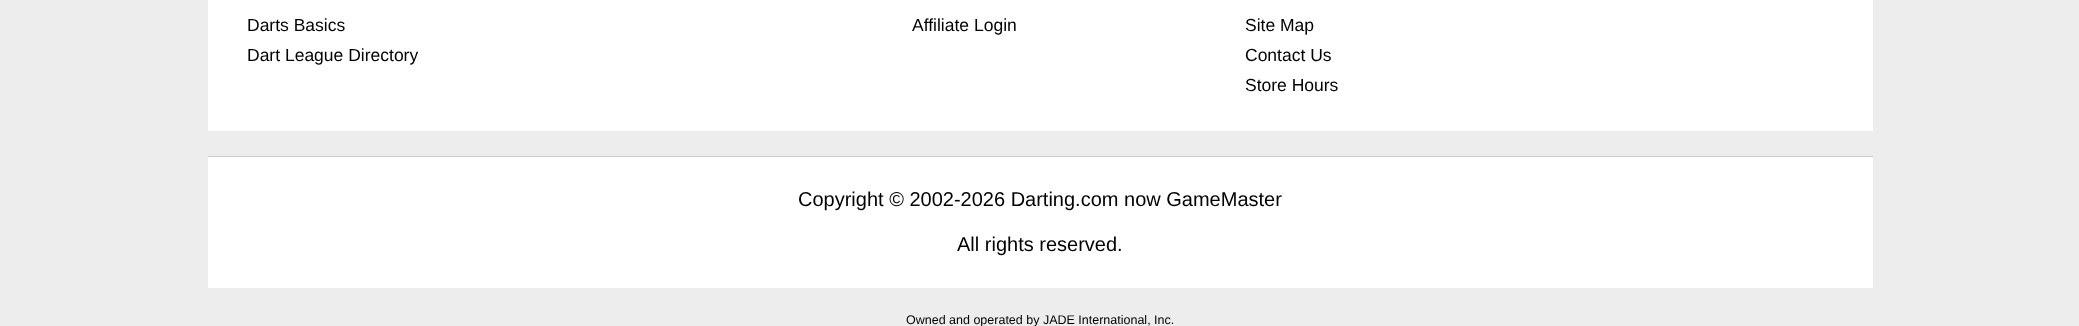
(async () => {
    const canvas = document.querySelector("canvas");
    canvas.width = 2079;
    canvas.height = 326;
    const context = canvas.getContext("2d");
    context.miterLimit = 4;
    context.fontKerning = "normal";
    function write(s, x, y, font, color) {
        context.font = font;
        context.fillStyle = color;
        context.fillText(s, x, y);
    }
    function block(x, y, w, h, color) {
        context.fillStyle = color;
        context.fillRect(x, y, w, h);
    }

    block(0, 0, 2079, 326, "rgb(237, 237, 237)");
    block(208, 0, 1665, 131, "rgb(255, 255, 255)");
    write("Darts Basics", 247, 31, "17.5px Liberation Sans", "rgb(0, 0, 0)");
    write("Dart League Directory", 247, 61, "17.5px Liberation Sans", "rgb(0, 0, 0)");
    write("Affiliate Login", 912, 31, "17.5px Liberation Sans", "rgb(0, 0, 0)");
    write("Site Map", 1245, 31, "17.5px Liberation Sans", "rgb(0, 0, 0)");
    write("Contact Us", 1245, 61, "17.5px Liberation Sans", "rgb(0, 0, 0)");
    write("Store Hours", 1245, 91, "17.5px Liberation Sans", "rgb(0, 0, 0)");
    block(208, 157, 1665, 131, "rgb(255, 255, 255)");
    block(208, 156, 1665, 1, "rgb(204, 204, 204)");
    write("Copyright © 2002-2026 Darting.com now GameMaster", 798, 206, "20px Liberation Sans", "rgb(0, 0, 0)");
    write("All rights reserved.", 957, 251, "20px Liberation Sans", "rgb(0, 0, 0)");
    write("Owned and operated by JADE International, Inc.", 906, 324, "12.5px Liberation Sans", "rgb(0, 0, 0)");
})();
